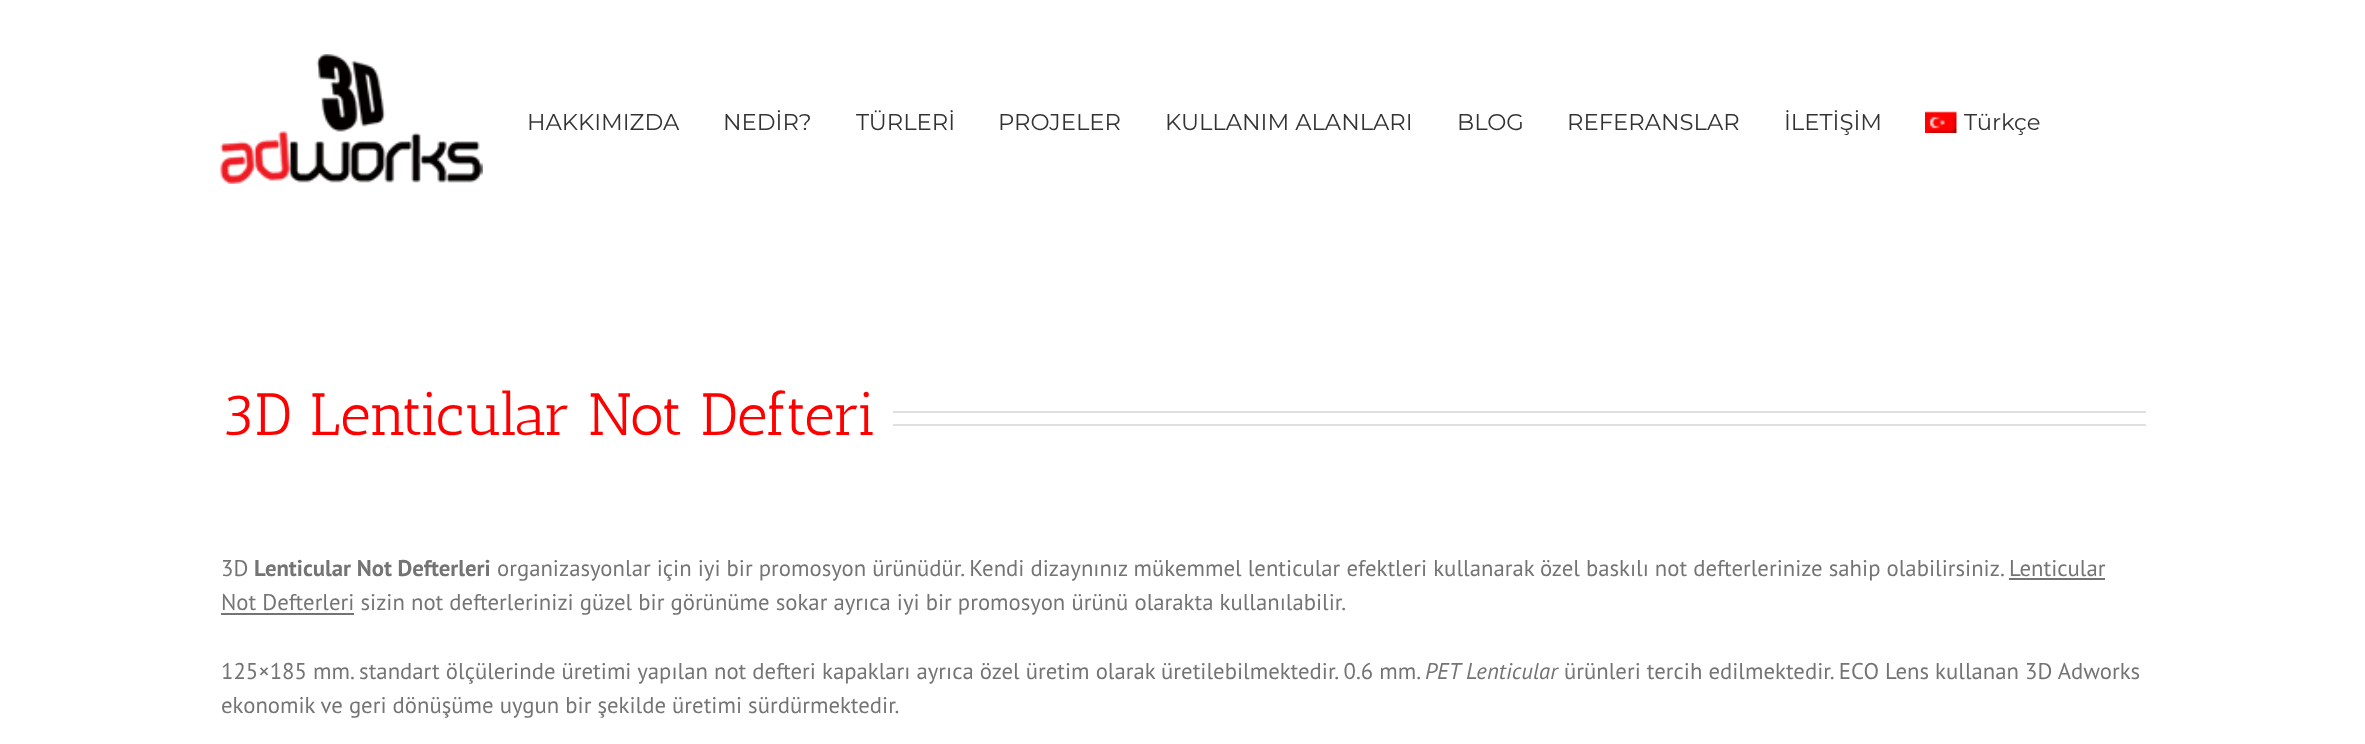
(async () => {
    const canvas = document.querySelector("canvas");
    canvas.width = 2365;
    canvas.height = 744;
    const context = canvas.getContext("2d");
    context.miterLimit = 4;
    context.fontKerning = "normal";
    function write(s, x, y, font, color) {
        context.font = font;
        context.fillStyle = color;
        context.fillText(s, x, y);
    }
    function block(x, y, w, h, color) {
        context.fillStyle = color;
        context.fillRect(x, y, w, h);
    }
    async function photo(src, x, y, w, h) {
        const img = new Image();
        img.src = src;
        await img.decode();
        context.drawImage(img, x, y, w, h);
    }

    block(0, 0, 2365, 744, "rgb(255, 255, 255)");
    await photo("media/1.png", 220, 54, 263, 130);
    write("HAKKIMIZDA", 527, 130, "100 22.75px Montserrat", "rgb(51, 51, 51)");
    write("NEDİR?", 723, 130, "100 22.75px Montserrat", "rgb(51, 51, 51)");
    write("TÜRLERİ", 856, 130, "100 22.75px Montserrat", "rgb(51, 51, 51)");
    write("PROJELER", 998, 130, "100 22.75px Montserrat", "rgb(51, 51, 51)");
    write("KULLANIM ALANLARI", 1165, 130, "100 22.75px Montserrat", "rgb(51, 51, 51)");
    write("BLOG", 1457, 130, "100 22.75px Montserrat", "rgb(51, 51, 51)");
    write("REFERANSLAR", 1567, 130, "100 22.75px Montserrat", "rgb(51, 51, 51)");
    write("İLETİŞİM", 1784, 130, "100 22.75px Montserrat", "rgb(51, 51, 51)");
    await photo("media/2.png", 1925, 111, 32, 22);
    write("Türkçe", 1964, 130, "100 22.75px Montserrat", "rgb(51, 51, 51)");
    write("3D Lenticular Not Defteri", 221, 435, "59.5px Antic Slab", "rgb(255, 0, 0)");
    block(893, 411, 1253, 2, "rgb(224, 222, 222)");
    block(893, 424, 1253, 2, "rgb(224, 222, 222)");
    write("3D", 221, 576, "22.75px PT Sans", "rgb(116, 116, 116)");
    write("Lenticular Not Defterleri", 254, 576, "bold 22.75px PT Sans", "rgb(116, 116, 116)");
    write("organizasyonlar için iyi bir promosyon ürünüdür. Kendi dizaynınız mükemmel lenticular efektleri kullanarak özel baskılı not defterlerinize sahip olabilirsiniz. Lenticular", 497, 576, "22.75px PT Sans", "rgb(116, 116, 116)");
    block(221, 613, 133, 2, "rgb(116, 116, 116)");
    write("Not Defterleri sizin not defterlerinizi güzel bir görünüme sokar ayrıca iyi bir promosyon ürünü olarakta kullanılabilir.", 221, 610, "22.75px PT Sans", "rgb(116, 116, 116)");
    block(2009, 578, 96, 2, "rgb(116, 116, 116)");
    write("125×185 mm. standart ölçülerinde üretimi yapılan not defteri kapakları ayrıca özel üretim olarak üretilebilmektedir. 0.6 mm.", 221, 679, "22.75px PT Sans", "rgb(116, 116, 116)");
    write("PET Lenticular", 1425, 679, "italic 22.75px PT Sans", "rgb(116, 116, 116)");
    write("ürünleri tercih edilmektedir. ECO Lens kullanan 3D Adworks", 1564, 679, "22.75px PT Sans", "rgb(116, 116, 116)");
    write("ekonomik ve geri dönüşüme uygun bir şekilde üretimi sürdürmektedir.", 221, 713, "22.75px PT Sans", "rgb(116, 116, 116)");
})();
